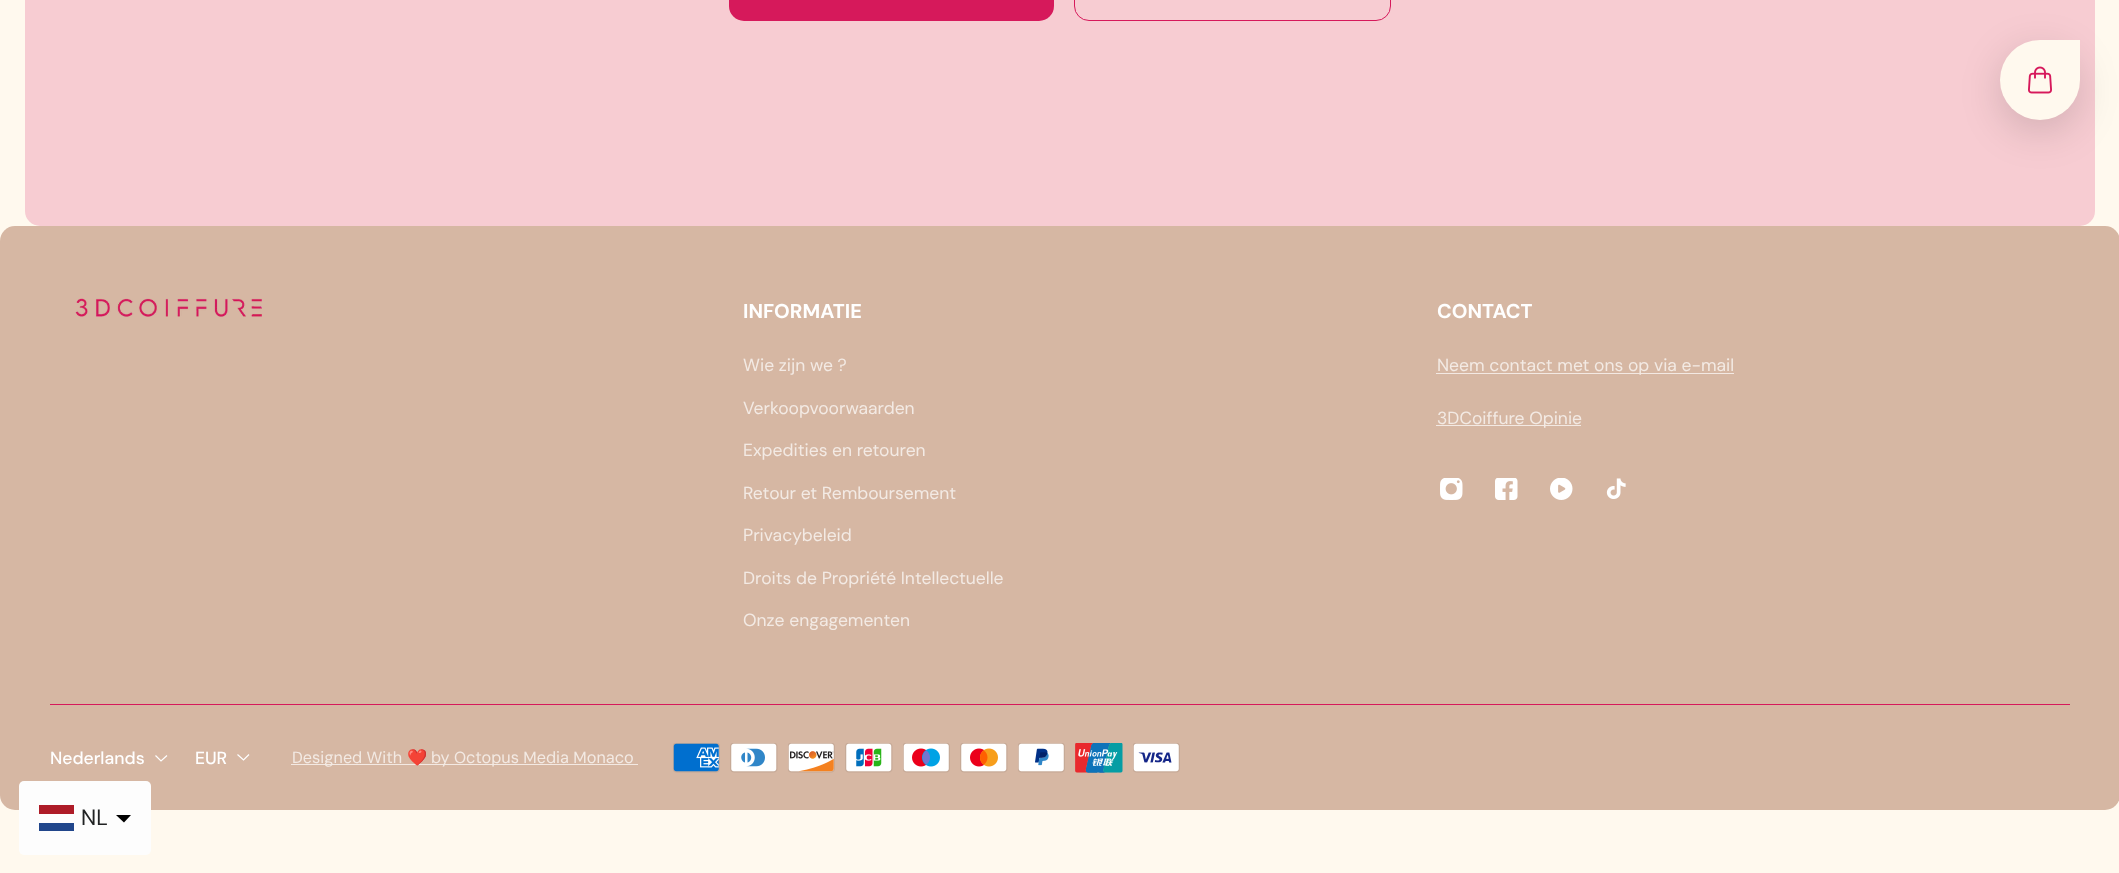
(async () => {
    const canvas = document.querySelector("canvas");
    canvas.width = 2119;
    canvas.height = 873;
    const context = canvas.getContext("2d");
    context.miterLimit = 4;
    context.fontKerning = "normal";
    function write(s, x, y, font, color) {
        context.font = font;
        context.fillStyle = color;
        context.fillText(s, x, y);
    }
    function block(x, y, w, h, color) {
        context.fillStyle = color;
        context.fillRect(x, y, w, h);
    }
    function card(x, y, w, h, r, color) {
        context.fillStyle = color;
        context.beginPath();
        context.roundRect(x, y, w, h, r);
        context.fill();
    }
    async function photo(src, x, y, w, h) {
        const img = new Image();
        img.src = src;
        await img.decode();
        context.drawImage(img, x, y, w, h);
    }

    block(0, 0, 2119, 873, "rgb(255, 249, 238)");
    card(25, -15, 2070, 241, 15, "rgb(247, 204, 210)");
    card(729, -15, 325, 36, 15, "rgb(214, 25, 91)");
    context.beginPath();
    context.roundRect(1074.5, -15.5, 316, 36, 14.5);
    context.strokeStyle = "rgb(214, 25, 91)";
    context.stroke();
    context.fillStyle = "rgba(0, 0, 0, 0.15)";
    context.filter = "blur(20px)";
    context.beginPath();
    context.roundRect(2000, 51, 80, 80, 40);
    context.fill();
    context.filter = "none";
    context.fillStyle = "rgb(255, 249, 238)";
    context.beginPath();
    context.roundRect(2000, 40, 80, 80, [40, 0, 40, 40]);
    context.fill();
    await photo("media/1.png", 2028, 66, 24, 28);
    card(0, 226, 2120, 584, 15, "rgb(214, 183, 163)");
    await photo("media/2.png", 75, 298, 187, 19);
    write("INFORMATIE", 743, 318, "bold 20px DM Sans", "rgb(255, 255, 255)");
    write("Wie zijn we ?", 743, 371, "17.5px 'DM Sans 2'", "rgb(243, 234, 228)");
    write("Verkoopvoorwaarden", 743, 414, "17.5px 'DM Sans 2'", "rgb(243, 234, 228)");
    write("Expedities en retouren", 743, 456, "17.5px 'DM Sans 2'", "rgb(243, 234, 228)");
    write("Retour et Remboursement", 743, 499, "17.5px 'DM Sans 2'", "rgb(243, 234, 228)");
    write("Privacybeleid", 743, 541, "17.5px 'DM Sans 2'", "rgb(243, 234, 228)");
    write("Droits de Propriété Intellectuelle", 743, 584, "17.5px 'DM Sans 2'", "rgb(243, 234, 228)");
    write("Onze engagementen", 743, 626, "17.5px 'DM Sans 2'", "rgb(243, 234, 228)");
    write("CONTACT", 1437, 318, "bold 20px DM Sans", "rgb(255, 255, 255)");
    block(1436, 373, 298, 1, "rgb(243, 233, 227)");
    write("Neem contact met ons op via e-mail", 1437, 371, "17.5px 'DM Sans 2'", "rgb(243, 234, 228)");
    block(1436, 425, 145, 1, "rgb(243, 233, 227)");
    write("3DCoiffure Opinie", 1437, 424, "17.5px 'DM Sans 2'", "rgb(243, 234, 228)");
    await photo("media/3.png", 1440, 478, 23, 22);
    await photo("media/4.png", 1495, 478, 23, 22);
    await photo("media/5.png", 1550, 478, 23, 22);
    await photo("media/6.png", 1606, 478, 20, 21);
    block(50, 704, 2020, 1, "rgb(214, 25, 91)");
    write("Nederlands", 50, 764, "500 17.5px DM Sans", "rgb(255, 255, 255)");
    context.beginPath();
    context.moveTo(167, 755.5);
    context.lineTo(161, 761);
    context.lineTo(155.5, 755.5);
    context.strokeStyle = "rgb(255, 255, 255)";
    context.lineWidth = 1.2;
    context.stroke();
    write("EUR", 195, 764, "500 17.5px DM Sans", "rgb(255, 255, 255)");
    context.beginPath();
    context.moveTo(249, 754.5);
    context.lineTo(243.5, 760);
    context.lineTo(237.5, 754.5);
    context.stroke();
    block(291, 764, 347, 1, "rgb(243, 233, 227)");
    write("Designed With", 292, 763, "16.25px DM Sans", "rgb(243, 234, 228)");
    write("❤️", 407, 763, "16.25px Noto Color Emoji", "rgb(243, 234, 228)");
    write("by Octopus Media Monaco", 431, 763, "16.25px DM Sans", "rgb(243, 234, 228)");
    await photo("media/7.png", 673, 743, 47, 30);
    await photo("media/8.png", 730, 743, 48, 30);
    await photo("media/9.png", 788, 743, 47, 30);
    await photo("media/10.png", 845, 743, 48, 30);
    await photo("media/11.png", 903, 743, 47, 30);
    await photo("media/12.png", 960, 743, 48, 30);
    await photo("media/13.png", 1018, 743, 47, 30);
    await photo("media/14.png", 1075, 743, 48, 30);
    await photo("media/15.png", 1133, 743, 47, 30);
    card(19, 781, 132, 74, 5, "rgb(253, 253, 253)");
    block(39, 823, 35, 8, "rgb(33, 70, 139)");
    block(39, 805, 35, 9, "rgb(174, 28, 40)");
    write("NL", 81, 825, "22px 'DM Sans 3'", "rgb(32, 34, 35)");
    context.fillStyle = "rgb(0, 0, 0)";
    context.beginPath();
    context.moveTo(116, 815);
    context.lineTo(131, 815);
    context.lineTo(124, 822.5);
    context.closePath();
    context.fill();
})();
